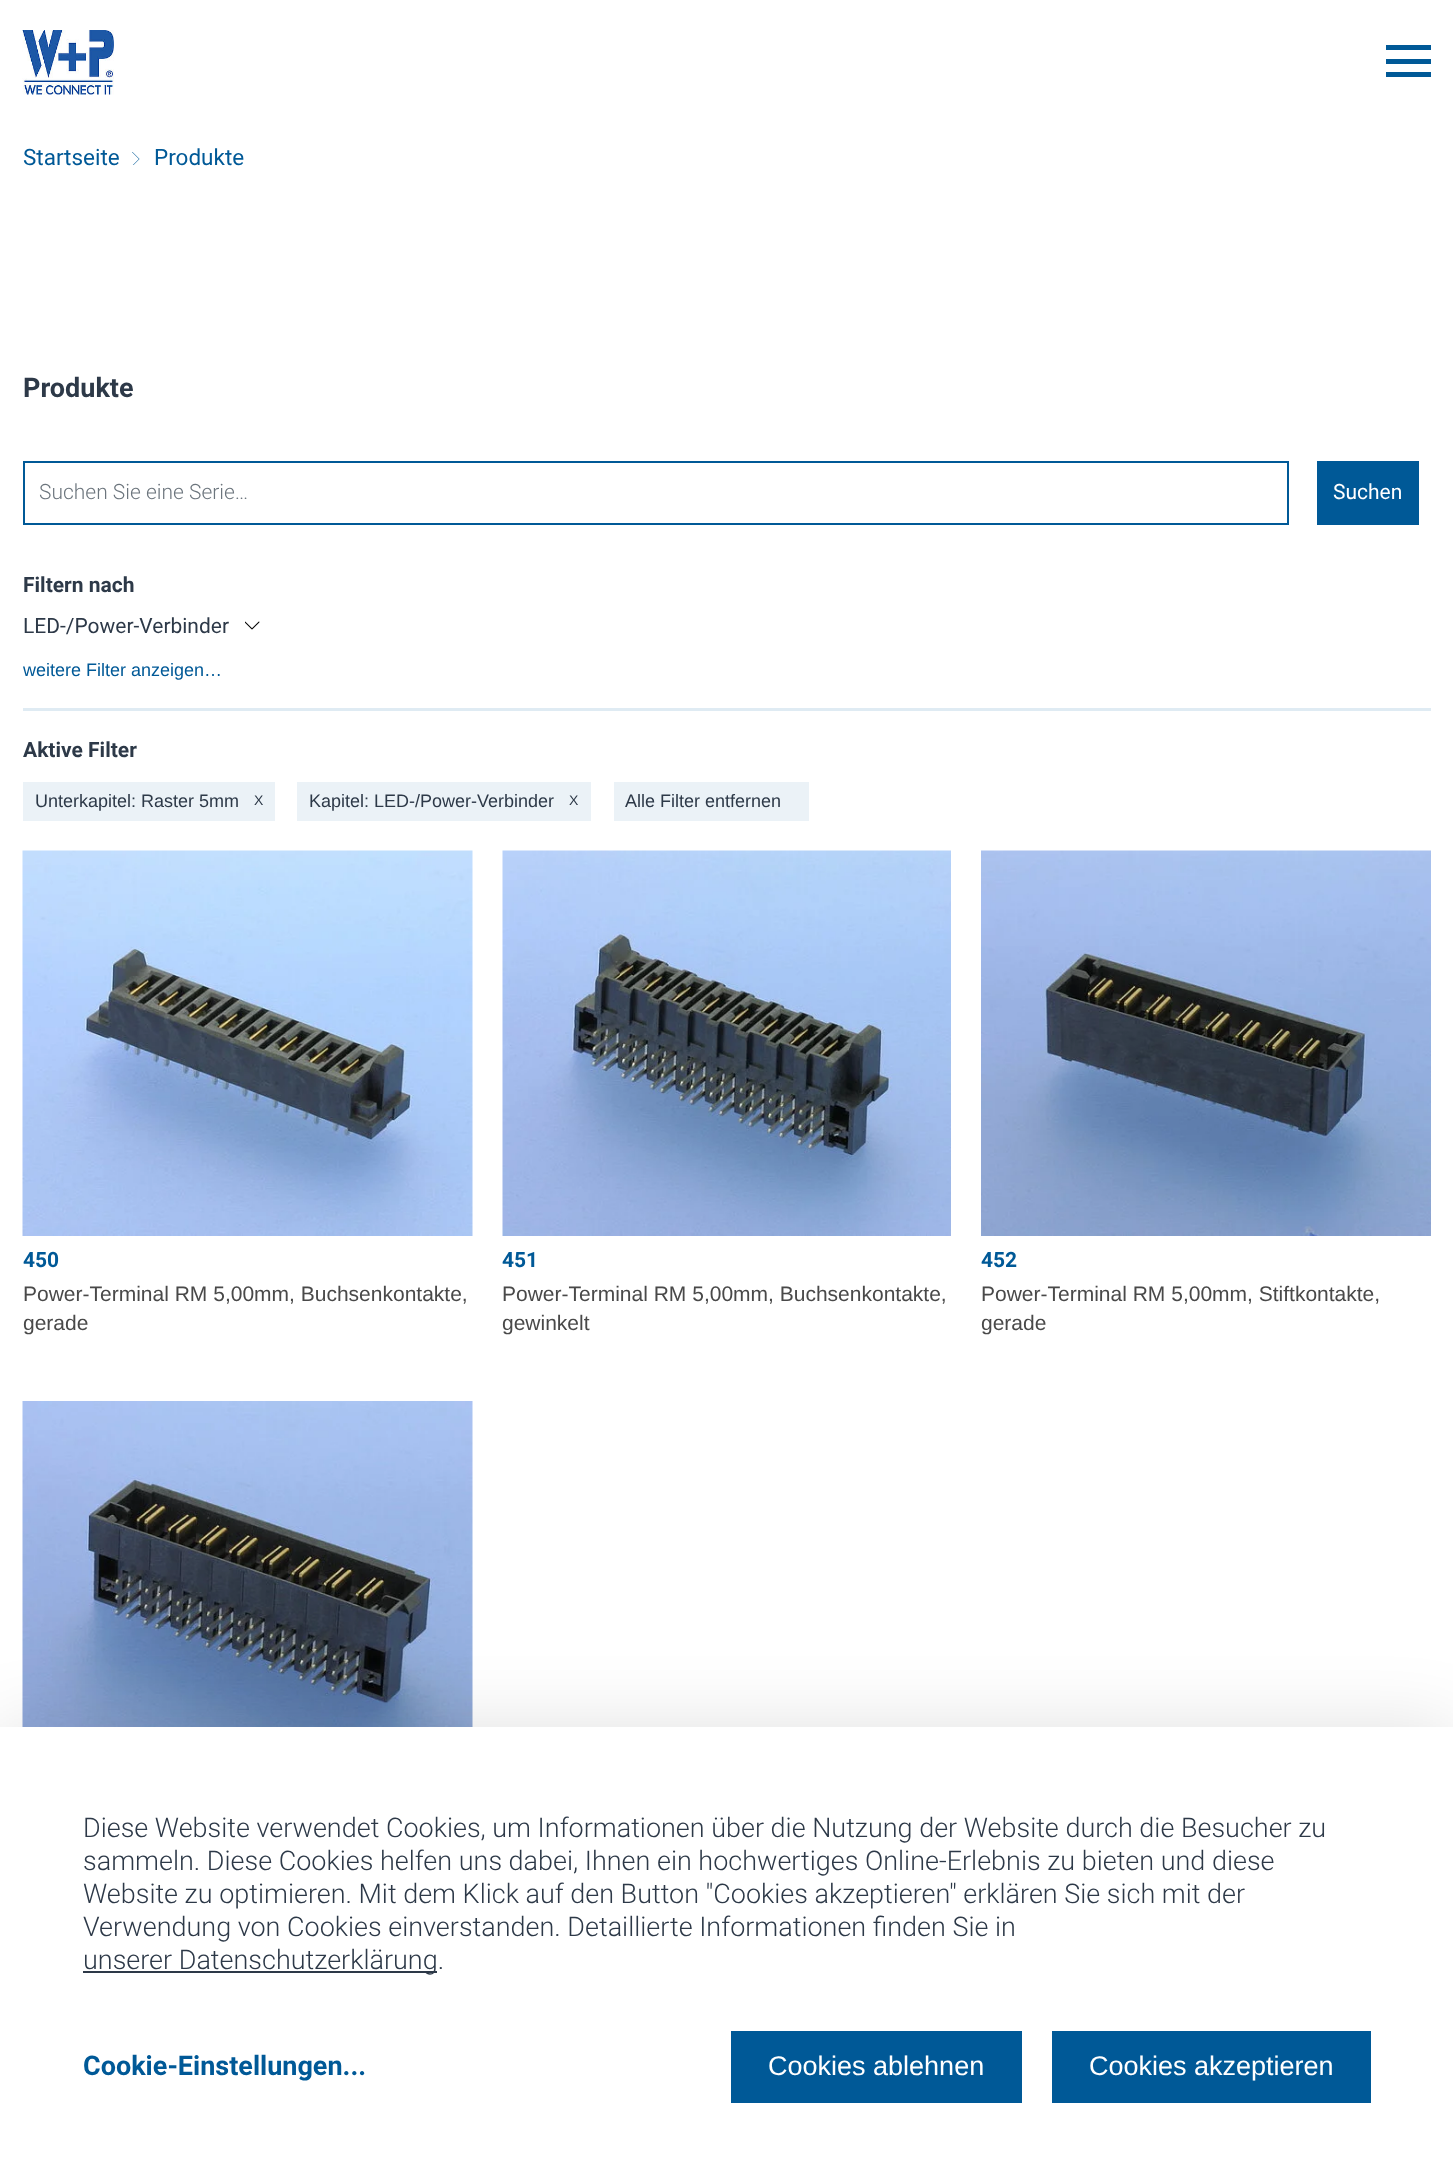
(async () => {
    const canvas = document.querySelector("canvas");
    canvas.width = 1453;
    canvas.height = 2183;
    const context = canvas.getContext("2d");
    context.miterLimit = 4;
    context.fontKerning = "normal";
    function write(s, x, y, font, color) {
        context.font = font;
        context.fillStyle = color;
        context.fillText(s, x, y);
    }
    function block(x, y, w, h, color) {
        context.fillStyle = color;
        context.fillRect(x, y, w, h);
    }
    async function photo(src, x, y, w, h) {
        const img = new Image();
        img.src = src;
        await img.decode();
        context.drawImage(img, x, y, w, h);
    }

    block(0, 0, 1453, 2183, "rgb(255, 255, 255)");
    await photo("media/1.png", 22, 30, 92, 65);
    block(1386, 45, 45, 5, "rgb(0, 89, 151)");
    block(1386, 59, 45, 5, "rgb(0, 89, 151)");
    block(1386, 72, 45, 5, "rgb(0, 89, 151)");
    write("Startseite", 23, 165, "22.5px Roboto", "rgb(0, 89, 151)");
    await photo("media/2.png", 132, 152, 8, 13);
    write("Produkte", 154, 165, "22.5px Roboto", "rgb(0, 89, 151)");
    write("Produkte", 23, 397, "bold 27px Roboto", "rgb(45, 57, 72)");
    context.strokeStyle = "rgb(0, 89, 151)";
    context.lineWidth = 2;
    context.strokeRect(24, 462, 1264, 62);
    write("Suchen Sie eine Serie…", 39, 499, "300 21px Roboto", "rgb(108, 117, 125)");
    block(1317, 461, 102, 64, "rgb(0, 89, 151)");
    write("Suchen", 1333, 499, "21px Roboto", "rgb(255, 255, 255)");
    write("Filtern nach", 23, 592, "bold 21px Roboto", "rgb(45, 57, 72)");
    write("LED-/Power-Verbinder", 23, 633, "21px Roboto", "rgb(45, 57, 72)");
    await photo("media/3.png", 245, 621, 15, 9);
    write("weitere Filter anzeigen…", 23, 676, "18px Liberation Sans", "rgb(0, 89, 151)");
    block(23, 708, 1408, 3, "rgb(223, 235, 243)");
    write("Aktive Filter", 23, 757, "bold 21px Roboto", "rgb(45, 57, 72)");
    block(23, 782, 252, 39, "rgb(235, 242, 247)");
    write("Unterkapitel: Raster 5mm", 35, 807, "18px Liberation Sans", "rgb(45, 57, 72)");
    write("X", 254, 805, "14px Liberation Sans", "rgb(45, 57, 72)");
    block(297, 782, 294, 39, "rgb(235, 242, 247)");
    write("Kapitel: LED-/Power-Verbinder", 309, 807, "18px Liberation Sans", "rgb(45, 57, 72)");
    write("X", 569, 805, "14px Liberation Sans", "rgb(45, 57, 72)");
    block(614, 782, 195, 39, "rgb(235, 242, 247)");
    write("Alle Filter entfernen", 625, 807, "18px Liberation Sans", "rgb(45, 57, 72)");
    await photo("media/4.png", 22, 850, 451, 386);
    write("450", 23, 1267, "bold 21px Roboto", "rgb(0, 89, 151)");
    write("Power-Terminal RM 5,00mm, Buchsenkontakte,", 23, 1301, "21px Liberation Sans", "rgb(73, 73, 73)");
    write("gerade", 23, 1330, "21px Liberation Sans", "rgb(73, 73, 73)");
    await photo("media/5.png", 502, 850, 449, 386);
    write("451", 502, 1267, "bold 21px Roboto", "rgb(0, 89, 151)");
    write("Power-Terminal RM 5,00mm, Buchsenkontakte,", 502, 1301, "21px Liberation Sans", "rgb(73, 73, 73)");
    write("gewinkelt", 502, 1330, "21px Liberation Sans", "rgb(73, 73, 73)");
    await photo("media/6.png", 981, 850, 450, 386);
    write("452", 981, 1267, "bold 21px Roboto", "rgb(0, 89, 151)");
    write("Power-Terminal RM 5,00mm, Stiftkontakte,", 981, 1301, "21px Liberation Sans", "rgb(73, 73, 73)");
    write("gerade", 981, 1330, "21px Liberation Sans", "rgb(73, 73, 73)");
    await photo("media/7.png", 22, 1401, 451, 326);
    context.fillStyle = "rgba(0, 0, 0, 0.13)";
    context.filter = "blur(37.5px)";
    context.beginPath();
    context.rect(0, 1730, 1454, 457);
    context.fill();
    context.filter = "none";
    block(0, 1727, 1453, 456, "rgb(255, 255, 255)");
    write("Diese Website verwendet Cookies, um Informationen über die Nutzung der Website durch die Besucher zu", 83, 1837, "300 27px Roboto", "rgb(45, 57, 72)");
    write("sammeln. Diese Cookies helfen uns dabei, Ihnen ein hochwertiges Online-Erlebnis zu bieten und diese", 83, 1870, "300 27px Roboto", "rgb(45, 57, 72)");
    write("Website zu optimieren. Mit dem Klick auf den Button \"Cookies akzeptieren\" erklären Sie sich mit der", 83, 1903, "300 27px Roboto", "rgb(45, 57, 72)");
    write("Verwendung von Cookies einverstanden. Detaillierte Informationen finden Sie in", 83, 1936, "300 27px Roboto", "rgb(45, 57, 72)");
    block(83, 1971, 354, 2, "rgb(45, 57, 72)");
    write("unserer Datenschutzerklärung.", 83, 1969, "300 27px Roboto", "rgb(45, 57, 72)");
    write("Cookie-Einstellungen...", 83, 2075, "bold 27px Roboto", "rgb(0, 89, 151)");
    block(731, 2031, 291, 72, "rgb(0, 89, 151)");
    write("Cookies ablehnen", 768, 2075, "27px Liberation Sans", "rgb(255, 255, 255)");
    block(1052, 2031, 319, 72, "rgb(0, 89, 151)");
    write("Cookies akzeptieren", 1089, 2075, "27px Liberation Sans", "rgb(255, 255, 255)");
})();
